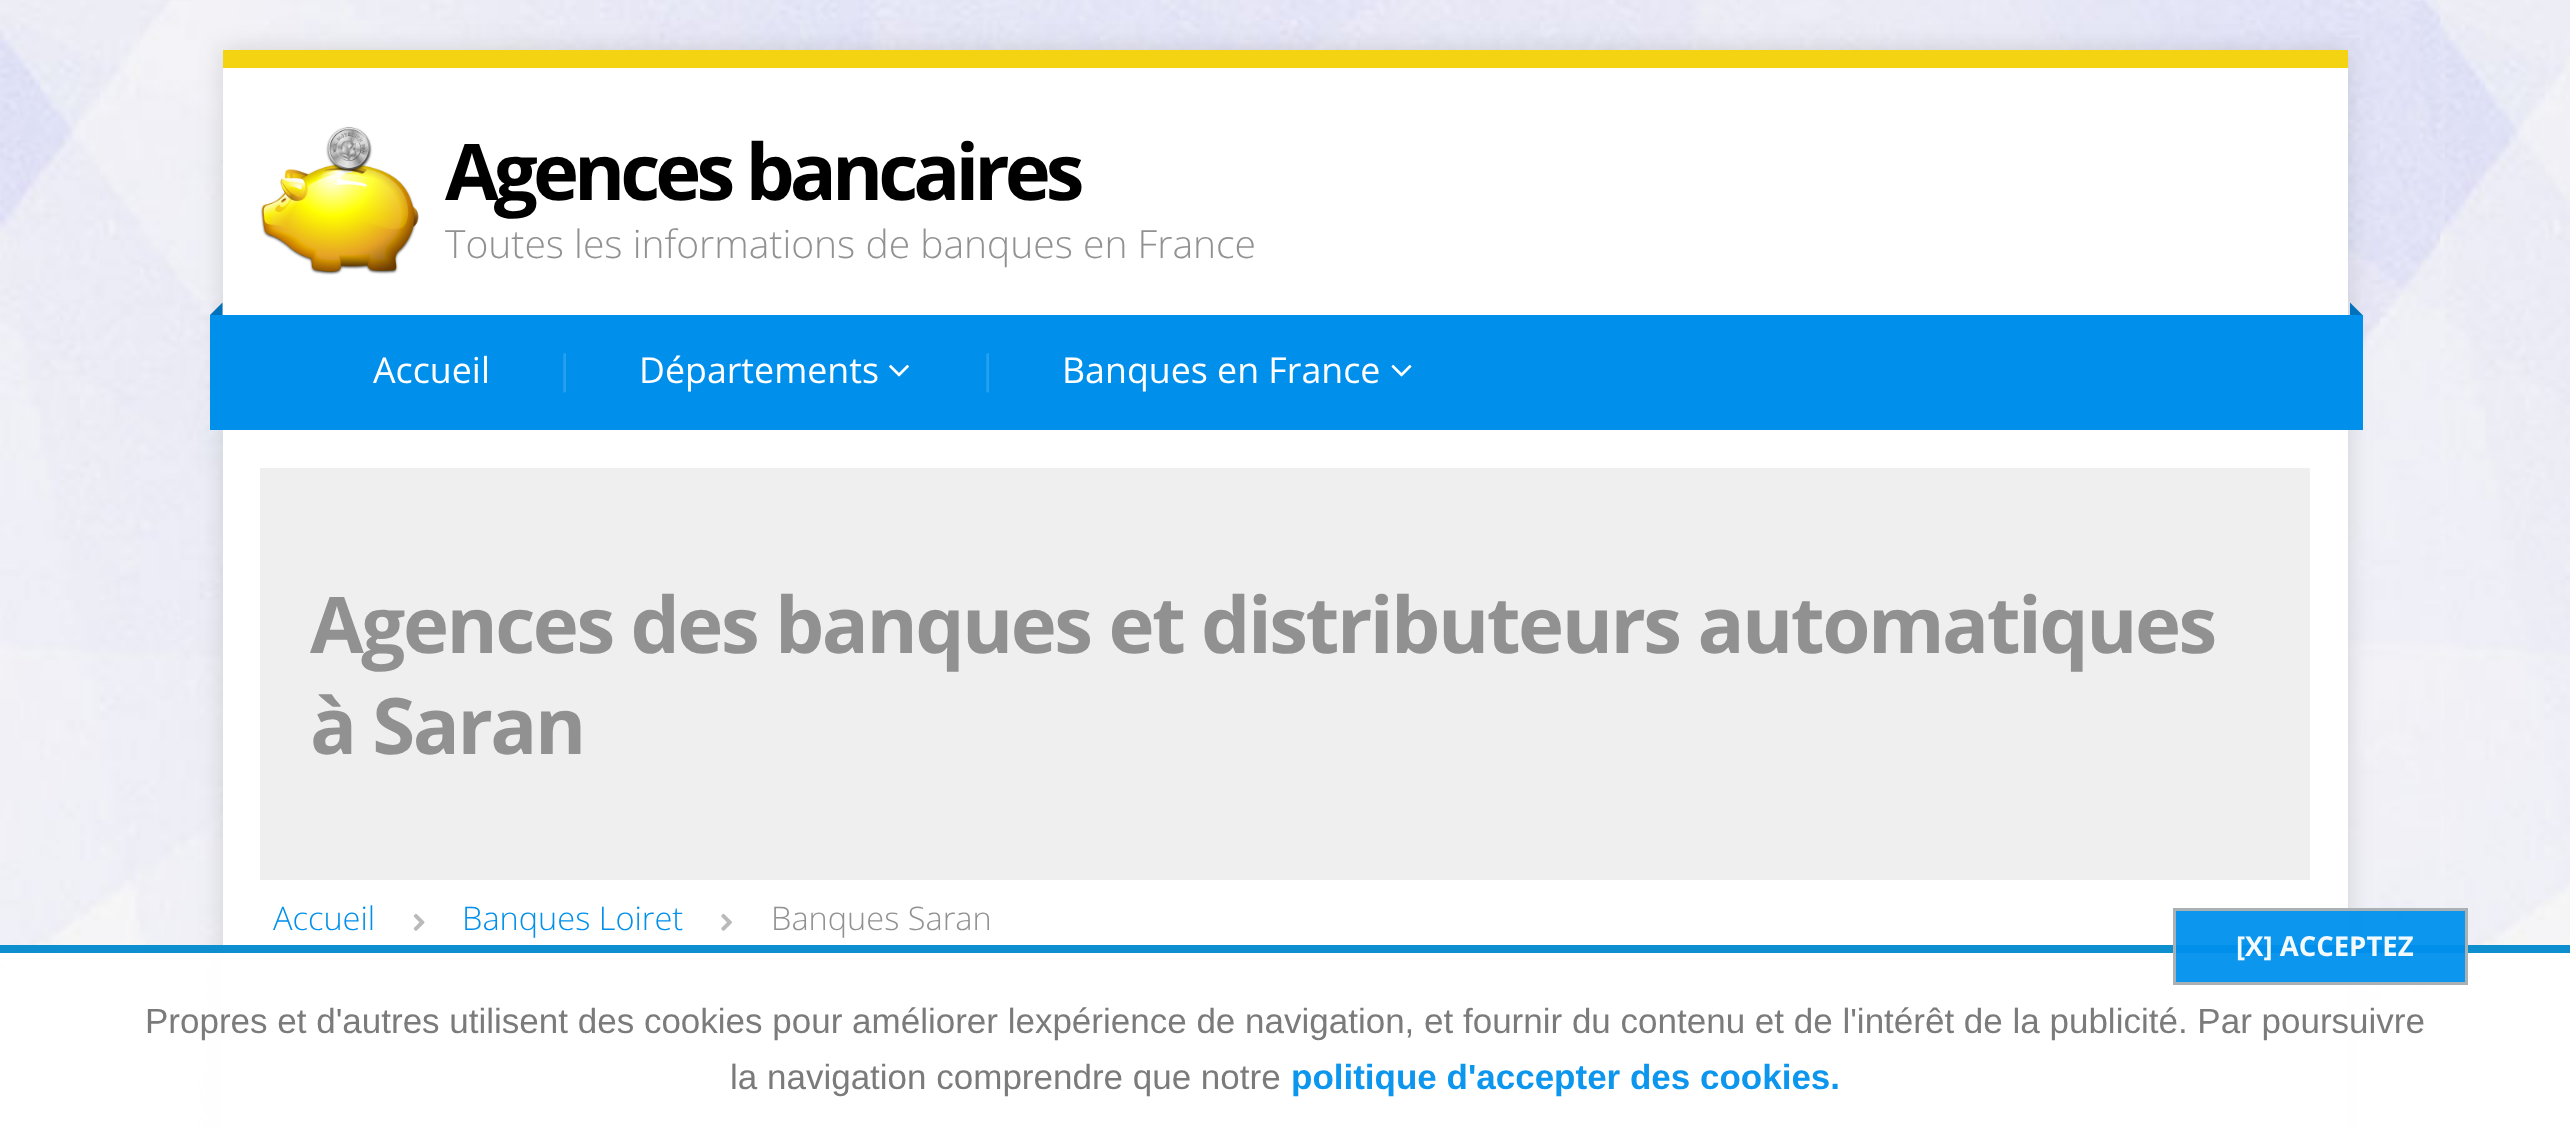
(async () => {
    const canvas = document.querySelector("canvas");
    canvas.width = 2570;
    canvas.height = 1128;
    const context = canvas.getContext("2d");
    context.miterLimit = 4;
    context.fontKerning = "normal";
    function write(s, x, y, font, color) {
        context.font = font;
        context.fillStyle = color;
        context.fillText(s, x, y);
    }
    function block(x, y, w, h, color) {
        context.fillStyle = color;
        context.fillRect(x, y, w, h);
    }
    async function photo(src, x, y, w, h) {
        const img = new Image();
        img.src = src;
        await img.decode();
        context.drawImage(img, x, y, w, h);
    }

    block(0, 0, 2570, 1128, "rgb(255, 255, 255)");
    await photo("media/1.png", 0, 0, 2570, 1128);
    context.fillStyle = "rgba(87, 87, 87, 0.2)";
    context.filter = "blur(12.5px)";
    context.beginPath();
    context.rect(223, 50, 2125, 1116);
    context.fill();
    context.filter = "none";
    block(223, 68, 2125, 1060, "rgb(255, 255, 255)");
    block(223, 50, 2125, 18, "rgb(243, 211, 18)");
    await photo("media/2.png", 260, 126, 159, 149);
    context.letterSpacing = "-5px";
    write("Agences bancaires", 445, 200, "bold 78px Open Sans", "rgb(0, 0, 0)");
    context.letterSpacing = "0px";
    write("Toutes les informations de banques en France", 445, 258, "300 39px Open Sans", "rgb(145, 145, 145)");
    block(210, 315, 2153, 115, "rgb(0, 144, 236)");
    context.fillStyle = "rgb(0, 113, 187)";
    context.beginPath();
    context.moveTo(222.5, 315);
    context.lineTo(210, 315);
    context.lineTo(222.5, 302.5);
    context.closePath();
    context.fill();
    context.beginPath();
    context.moveTo(2362.5, 315);
    context.lineTo(2350, 315);
    context.lineTo(2350, 302.5);
    context.closePath();
    context.fill();
    write("Accueil", 373, 383, "35.75px Open Sans", "rgb(255, 255, 255)");
    write("|", 554, 383, "39px Open Sans", "rgb(38, 161, 239)");
    write("Départements", 639, 383, "35.75px Open Sans", "rgb(255, 255, 255)");
    await photo("media/3.png", 889, 364, 20, 13);
    write("|", 977, 383, "39px Open Sans", "rgb(38, 161, 239)");
    write("Banques en France", 1062, 383, "35.75px Open Sans", "rgb(255, 255, 255)");
    await photo("media/4.png", 1391, 364, 21, 13);
    block(260, 468, 2050, 412, "rgb(239, 239, 239)");
    context.letterSpacing = "-2.5px";
    write("Agences des banques et distributeurs automatiques", 310, 653, "bold 78px Open Sans", "rgb(145, 145, 145)");
    write("à Saran", 310, 754, "bold 78px Open Sans", "rgb(145, 145, 145)");
    context.letterSpacing = "0px";
    write("Accueil", 273, 930, "300 32.5px Open Sans", "rgb(0, 144, 236)");
    await photo("media/5.png", 413, 914, 12, 17);
    write("Banques Loiret", 462, 930, "300 32.5px Open Sans", "rgb(0, 144, 236)");
    await photo("media/6.png", 721, 913, 11, 18);
    write("Banques Saran", 771, 930, "300 32.5px Open Sans", "rgb(145, 145, 145)");
    block(260, 958, 2050, 3, "rgb(226, 226, 226)");
    block(0, 953, 2570, 175, "rgba(255, 255, 255, 0.95)");
    block(0, 945, 2570, 8, "rgb(13, 142, 207)");
    block(2173, 908, 295, 77, "rgba(0, 144, 236, 0.95)");
    context.strokeStyle = "rgba(178, 178, 177, 0.95)";
    context.lineWidth = 3;
    context.strokeRect(2174.5, 909.5, 292, 74);
    write("[X] ACCEPTEZ", 2236, 956, "bold 27.5px Open Sans", "rgb(243, 250, 254)");
    write("Propres et d'autres utilisent des cookies pour améliorer lexpérience de navigation, et fournir du contenu et de l'intérêt de la publicité. Par poursuivre", 145, 1033, "35px Liberation Sans", "rgb(123, 123, 123)");
    write("la navigation comprendre que notre", 730, 1089, "35px Liberation Sans", "rgb(123, 123, 123)");
    write("politique d'accepter des cookies.", 1291, 1089, "bold 35px Liberation Sans", "rgb(13, 150, 237)");
})();
